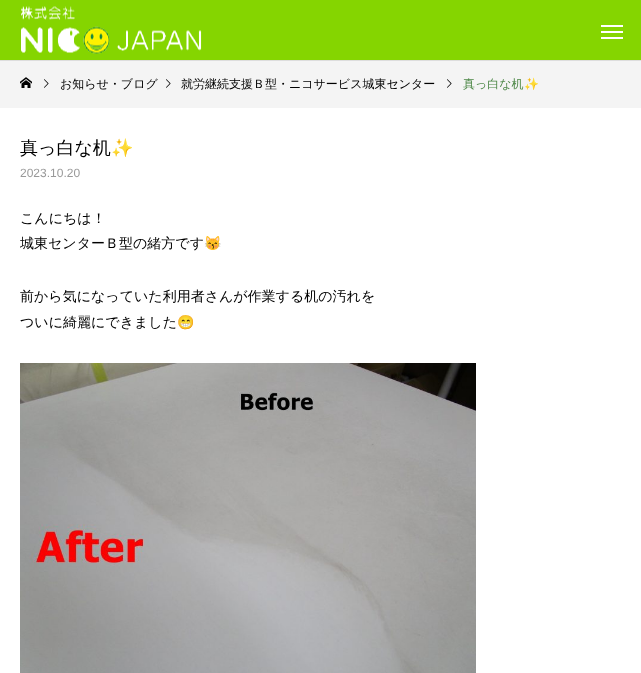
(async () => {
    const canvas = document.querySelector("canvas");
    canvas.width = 641;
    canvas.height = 673;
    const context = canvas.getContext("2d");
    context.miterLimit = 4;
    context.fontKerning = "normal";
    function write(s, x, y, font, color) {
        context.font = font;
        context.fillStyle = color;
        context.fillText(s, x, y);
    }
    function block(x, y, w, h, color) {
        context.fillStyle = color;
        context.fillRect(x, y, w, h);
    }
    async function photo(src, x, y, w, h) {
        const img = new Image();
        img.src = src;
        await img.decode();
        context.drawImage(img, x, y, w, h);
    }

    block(0, 0, 641, 673, "rgb(244, 244, 244)");
    block(0, 0, 641, 60, "rgb(133, 213, 0)");
    await photo("media/1.png", 20, 6, 182, 48);
    block(601, 25, 22, 2, "rgb(255, 255, 255)");
    block(601, 31, 22, 2, "rgb(255, 255, 255)");
    block(601, 37, 22, 2, "rgb(255, 255, 255)");
    block(0, 60, 641, 1, "rgb(221, 221, 221)");
    await photo("media/2.png", 20, 77, 12, 11);
    await photo("media/3.png", 44, 79, 5, 9);
    write("お知らせ・ブログ", 60, 88, "500 12px WenQuanYi Zen Hei", "rgb(0, 0, 0)");
    await photo("media/3.png", 166, 79, 5, 9);
    write("就労継続支援Ｂ型・ニコサービス城東センター", 181, 88, "500 12px WenQuanYi Zen Hei", "rgb(0, 0, 0)");
    await photo("media/3.png", 447, 79, 5, 9);
    write("真っ白な机", 463, 88, "500 12px WenQuanYi Zen Hei", "rgb(76, 135, 70)");
    write("✨", 524, 88, "12px Noto Color Emoji", "rgb(76, 135, 70)");
    block(0, 108, 641, 565, "rgb(255, 255, 255)");
    write("真っ白な机", 20, 154, "500 18px WenQuanYi Zen Hei", "rgb(0, 0, 0)");
    write("✨", 111, 154, "18px Noto Color Emoji", "rgb(0, 0, 0)");
    write("2023.10.20", 20, 177, "12px Liberation Sans", "rgb(153, 153, 153)");
    write("こんにちは！", 20, 223, "500 14px WenQuanYi Zen Hei", "rgb(0, 0, 0)");
    write("城東センターＢ型の緒方です", 20, 248, "500 14px WenQuanYi Zen Hei", "rgb(0, 0, 0)");
    write("😽", 204, 248, "14px Noto Color Emoji", "rgb(0, 0, 0)");
    write("前から気になっていた利用者さんが作業する机の汚れを", 20, 301, "500 14px WenQuanYi Zen Hei", "rgb(0, 0, 0)");
    write("ついに綺麗にできました", 20, 327, "500 14px WenQuanYi Zen Hei", "rgb(0, 0, 0)");
    write("😁", 177, 327, "14px Noto Color Emoji", "rgb(0, 0, 0)");
    await photo("media/4.png", 20, 363, 456, 310);
})();
